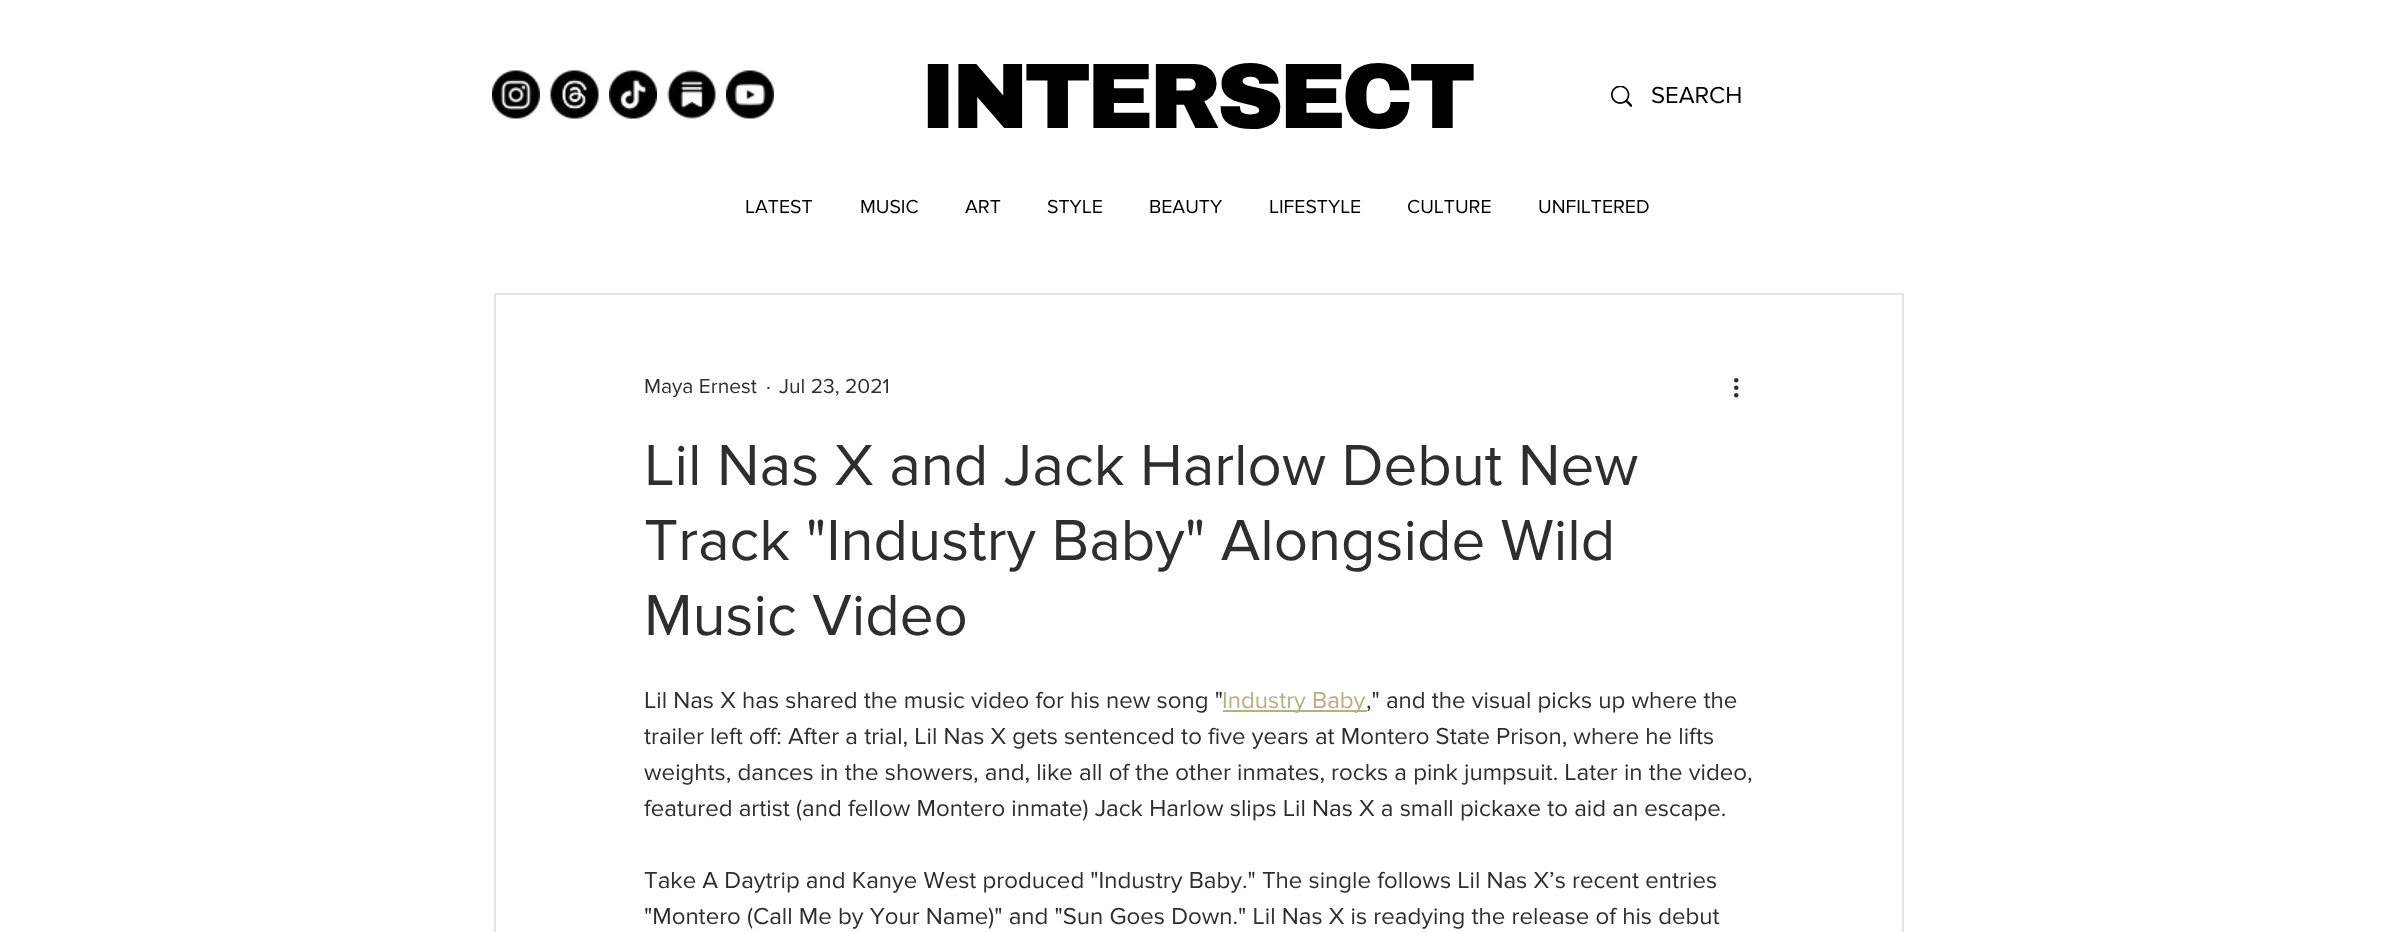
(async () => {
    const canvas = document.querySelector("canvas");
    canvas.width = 2396;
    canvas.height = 932;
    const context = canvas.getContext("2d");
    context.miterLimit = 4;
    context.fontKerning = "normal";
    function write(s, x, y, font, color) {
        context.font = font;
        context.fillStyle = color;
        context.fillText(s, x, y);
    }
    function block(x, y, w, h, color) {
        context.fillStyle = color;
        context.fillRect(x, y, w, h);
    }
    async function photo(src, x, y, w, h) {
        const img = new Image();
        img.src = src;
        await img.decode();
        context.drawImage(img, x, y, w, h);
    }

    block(0, 0, 2396, 932, "rgb(255, 255, 255)");
    await photo("media/1.png", 492, 70, 48, 49);
    await photo("media/2.png", 550, 70, 49, 49);
    await photo("media/3.png", 609, 70, 48, 49);
    await photo("media/4.png", 667, 70, 49, 49);
    await photo("media/5.png", 726, 70, 48, 49);
    context.letterSpacing = "-4.75px";
    write("INTERSECT", 920, 128, "900 93px Archivo Black", "rgb(0, 0, 0)");
    await photo("media/6.png", 1611, 86, 21, 21);
    context.letterSpacing = "0px";
    write("SEARCH", 1651, 103, "24px 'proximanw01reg'", "rgb(0, 0, 0)");
    write("LATEST", 745, 213, "19.5px 'proximanw01reg'", "rgb(0, 0, 0)");
    write("MUSIC", 860, 213, "19.5px 'proximanw01reg'", "rgb(0, 0, 0)");
    write("ART", 965, 213, "19.5px 'proximanw01reg'", "rgb(0, 0, 0)");
    write("STYLE", 1047, 213, "19.5px 'proximanw01reg'", "rgb(0, 0, 0)");
    write("BEAUTY", 1149, 213, "19.5px 'proximanw01reg'", "rgb(0, 0, 0)");
    write("LIFESTYLE", 1269, 213, "19.5px 'proximanw01reg'", "rgb(0, 0, 0)");
    write("CULTURE", 1407, 213, "19.5px 'proximanw01reg'", "rgb(0, 0, 0)");
    write("UNFILTERED", 1538, 213, "19.5px 'proximanw01reg'", "rgb(0, 0, 0)");
    context.strokeStyle = "rgb(228, 228, 228)";
    context.lineWidth = 2;
    context.strokeRect(495, 294, 1408, 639);
    write("Maya Ernest", 644, 393, "21px 'proximanw01reg'", "rgb(47, 46, 46)");
    write("·", 766, 393, "21px 'proximanw01reg'", "rgb(47, 46, 46)");
    write("Jul 23, 2021", 779, 393, "21px 'proximanw01reg'", "rgb(47, 46, 46)");
    await photo("media/7.png", 1734, 378, 5, 20);
    write("Lil Nas X and Jack Harlow Debut New", 644, 485, "60px 'proximanw01reg'", "rgb(47, 46, 46)");
    write("Track \"Industry Baby\" Alongside Wild", 644, 560, "60px 'proximanw01reg'", "rgb(47, 46, 46)");
    write("Music Video", 644, 635, "60px 'proximanw01reg'", "rgb(47, 46, 46)");
    write("Lil Nas X has shared the music video for his new song \"", 644, 708, "24px 'proximanw01reg'", "rgb(47, 46, 46)");
    block(1223, 710, 144, 2, "rgb(185, 174, 128)");
    write("Industry Baby", 1222, 708, "24px 'proximanw01reg'", "rgb(185, 174, 128)");
    write(",\" and the visual picks up where the", 1366, 708, "24px 'proximanw01reg'", "rgb(47, 46, 46)");
    write("trailer left off: After a trial, Lil Nas X gets sentenced to five years at Montero State Prison, where he lifts", 644, 744, "24px 'proximanw01reg'", "rgb(47, 46, 46)");
    write("weights, dances in the showers, and, like all of the other inmates, rocks a pink jumpsuit. Later in the video,", 644, 780, "24px 'proximanw01reg'", "rgb(47, 46, 46)");
    write("featured artist (and fellow Montero inmate) Jack Harlow slips Lil Nas X a small pickaxe to aid an escape.", 644, 816, "24px 'proximanw01reg'", "rgb(47, 46, 46)");
    write("Take A Daytrip and Kanye West produced \"Industry Baby.\" The single follows Lil Nas X’s recent entries", 644, 888, "24px 'proximanw01reg'", "rgb(47, 46, 46)");
    write("\"Montero (Call Me by Your Name)\" and \"Sun Goes Down.\" Lil Nas X is readying the release of his debut", 644, 924, "24px 'proximanw01reg'", "rgb(47, 46, 46)");
})();
